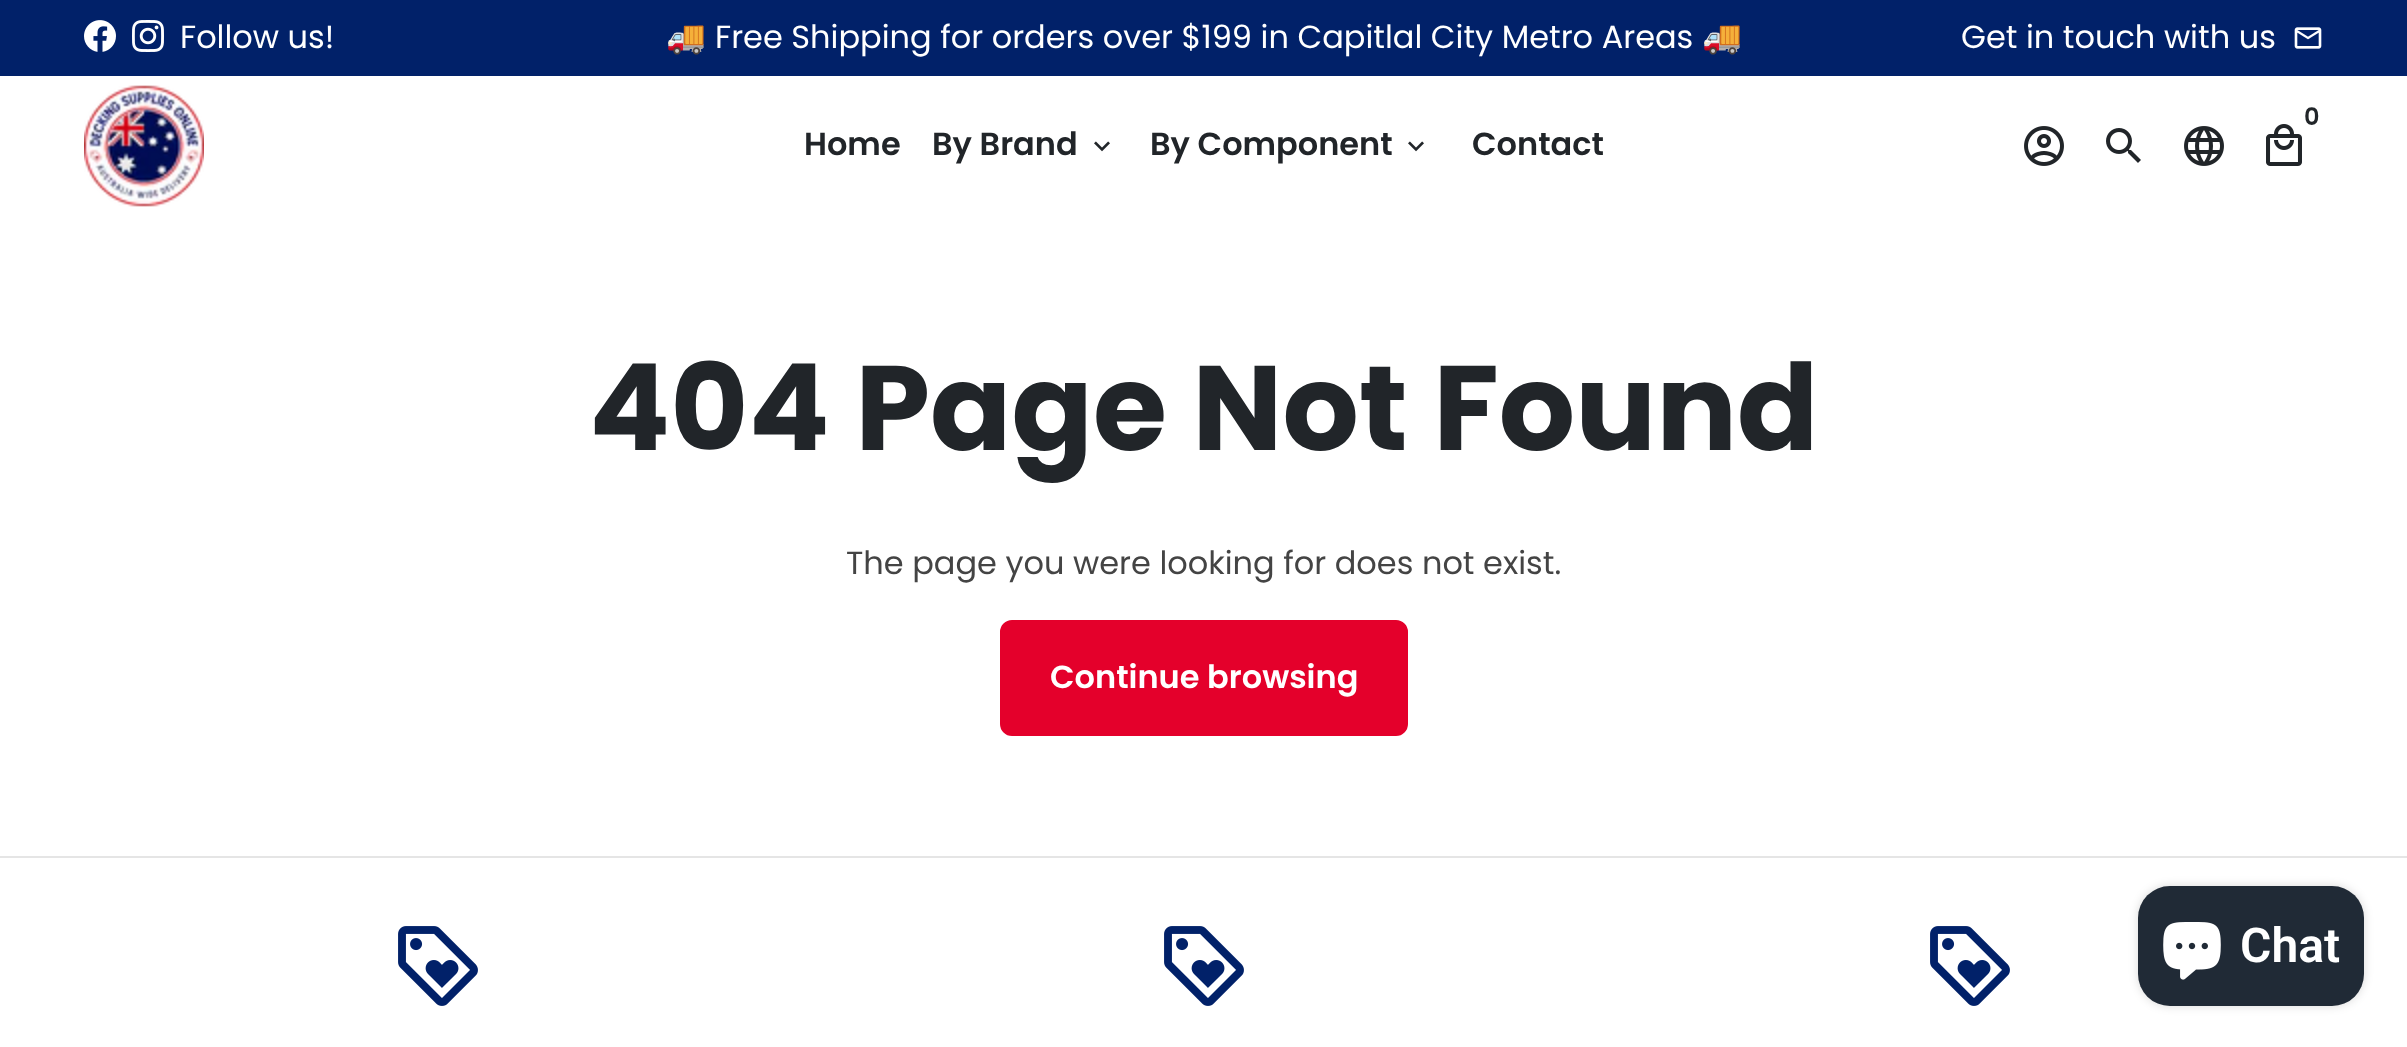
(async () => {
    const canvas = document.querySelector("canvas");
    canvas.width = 2407;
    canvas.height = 1047;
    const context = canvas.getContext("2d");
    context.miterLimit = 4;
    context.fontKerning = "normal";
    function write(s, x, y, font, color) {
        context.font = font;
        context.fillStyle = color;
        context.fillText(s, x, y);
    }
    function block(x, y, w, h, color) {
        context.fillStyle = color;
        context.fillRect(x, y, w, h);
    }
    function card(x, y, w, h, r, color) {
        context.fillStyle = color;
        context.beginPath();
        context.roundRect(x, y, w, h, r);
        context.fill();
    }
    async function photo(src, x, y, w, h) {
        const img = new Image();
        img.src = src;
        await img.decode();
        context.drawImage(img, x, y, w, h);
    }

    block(0, 0, 2407, 1047, "rgb(255, 255, 255)");
    block(0, 0, 2407, 76, "rgb(1, 33, 105)");
    await photo("media/1.png", 84, 20, 32, 32);
    await photo("media/2.png", 132, 20, 32, 32);
    write("Follow us!", 180, 48, "32px Poppins", "rgb(255, 255, 255)");
    write("🚚", 666, 48, "32px Noto Color Emoji", "rgb(255, 255, 255)");
    write("Free Shipping for orders over $199 in Capitlal City Metro Areas", 715, 48, "32px Poppins", "rgb(255, 255, 255)");
    write("🚚", 1702, 48, "32px Noto Color Emoji", "rgb(255, 255, 255)");
    write("Get in touch with us", 1961, 48, "32px Poppins", "rgb(255, 255, 255)");
    await photo("media/3.png", 2294, 27, 28, 22);
    await photo("media/4.png", 84, 85, 120, 122);
    write("0", 2304, 125, "600 24px Poppins", "rgb(33, 37, 41)");
    await photo("media/5.png", 2266, 124, 36, 42);
    await photo("media/6.png", 2024, 126, 40, 40);
    await photo("media/7.png", 2106, 128, 35, 35);
    await photo("media/8.png", 2184, 126, 40, 40);
    write("Home", 804, 155, "600 32px Poppins", "rgb(33, 37, 41)");
    write("By Brand", 932, 155, "600 32px Poppins", "rgb(33, 37, 41)");
    await photo("media/9.png", 1094, 141, 16, 11);
    write("By Component", 1150, 155, "600 32px Poppins", "rgb(33, 37, 41)");
    await photo("media/9.png", 1408, 141, 16, 11);
    write("Contact", 1472, 155, "600 32px Poppins", "rgb(33, 37, 41)");
    write("404 Page Not Found", 589, 450, "bold 120px Poppins", "rgb(33, 37, 41)");
    write("The page you were looking for does not exist.", 846, 574, "32px Poppins", "rgb(68, 68, 68)");
    context.fillStyle = "rgb(228, 0, 43)";
    context.beginPath();
    context.roundRect(1001, 621, 406, 114, 11);
    context.fill();
    context.strokeStyle = "rgb(228, 0, 43)";
    context.lineWidth = 2;
    context.stroke();
    write("Continue browsing", 1050, 688, "600 32px Poppins", "rgb(255, 255, 255)");
    block(0, 856, 2407, 2, "rgb(229, 229, 229)");
    await photo("media/10.png", 398, 926, 80, 80);
    await photo("media/10.png", 1164, 926, 80, 80);
    await photo("media/10.png", 1930, 926, 80, 80);
    context.fillStyle = "rgba(0, 0, 0, 0.15)";
    context.filter = "blur(5px)";
    context.beginPath();
    context.roundRect(2138, 886, 226, 120, 32);
    context.fill();
    context.filter = "none";
    card(2138, 886, 226, 120, 32, "rgb(32, 42, 54)");
    await photo("media/11.png", 2163, 922, 58, 58);
    write("Chat", 2240, 962, "600 48px Roboto", "rgb(255, 255, 255)");
})();
